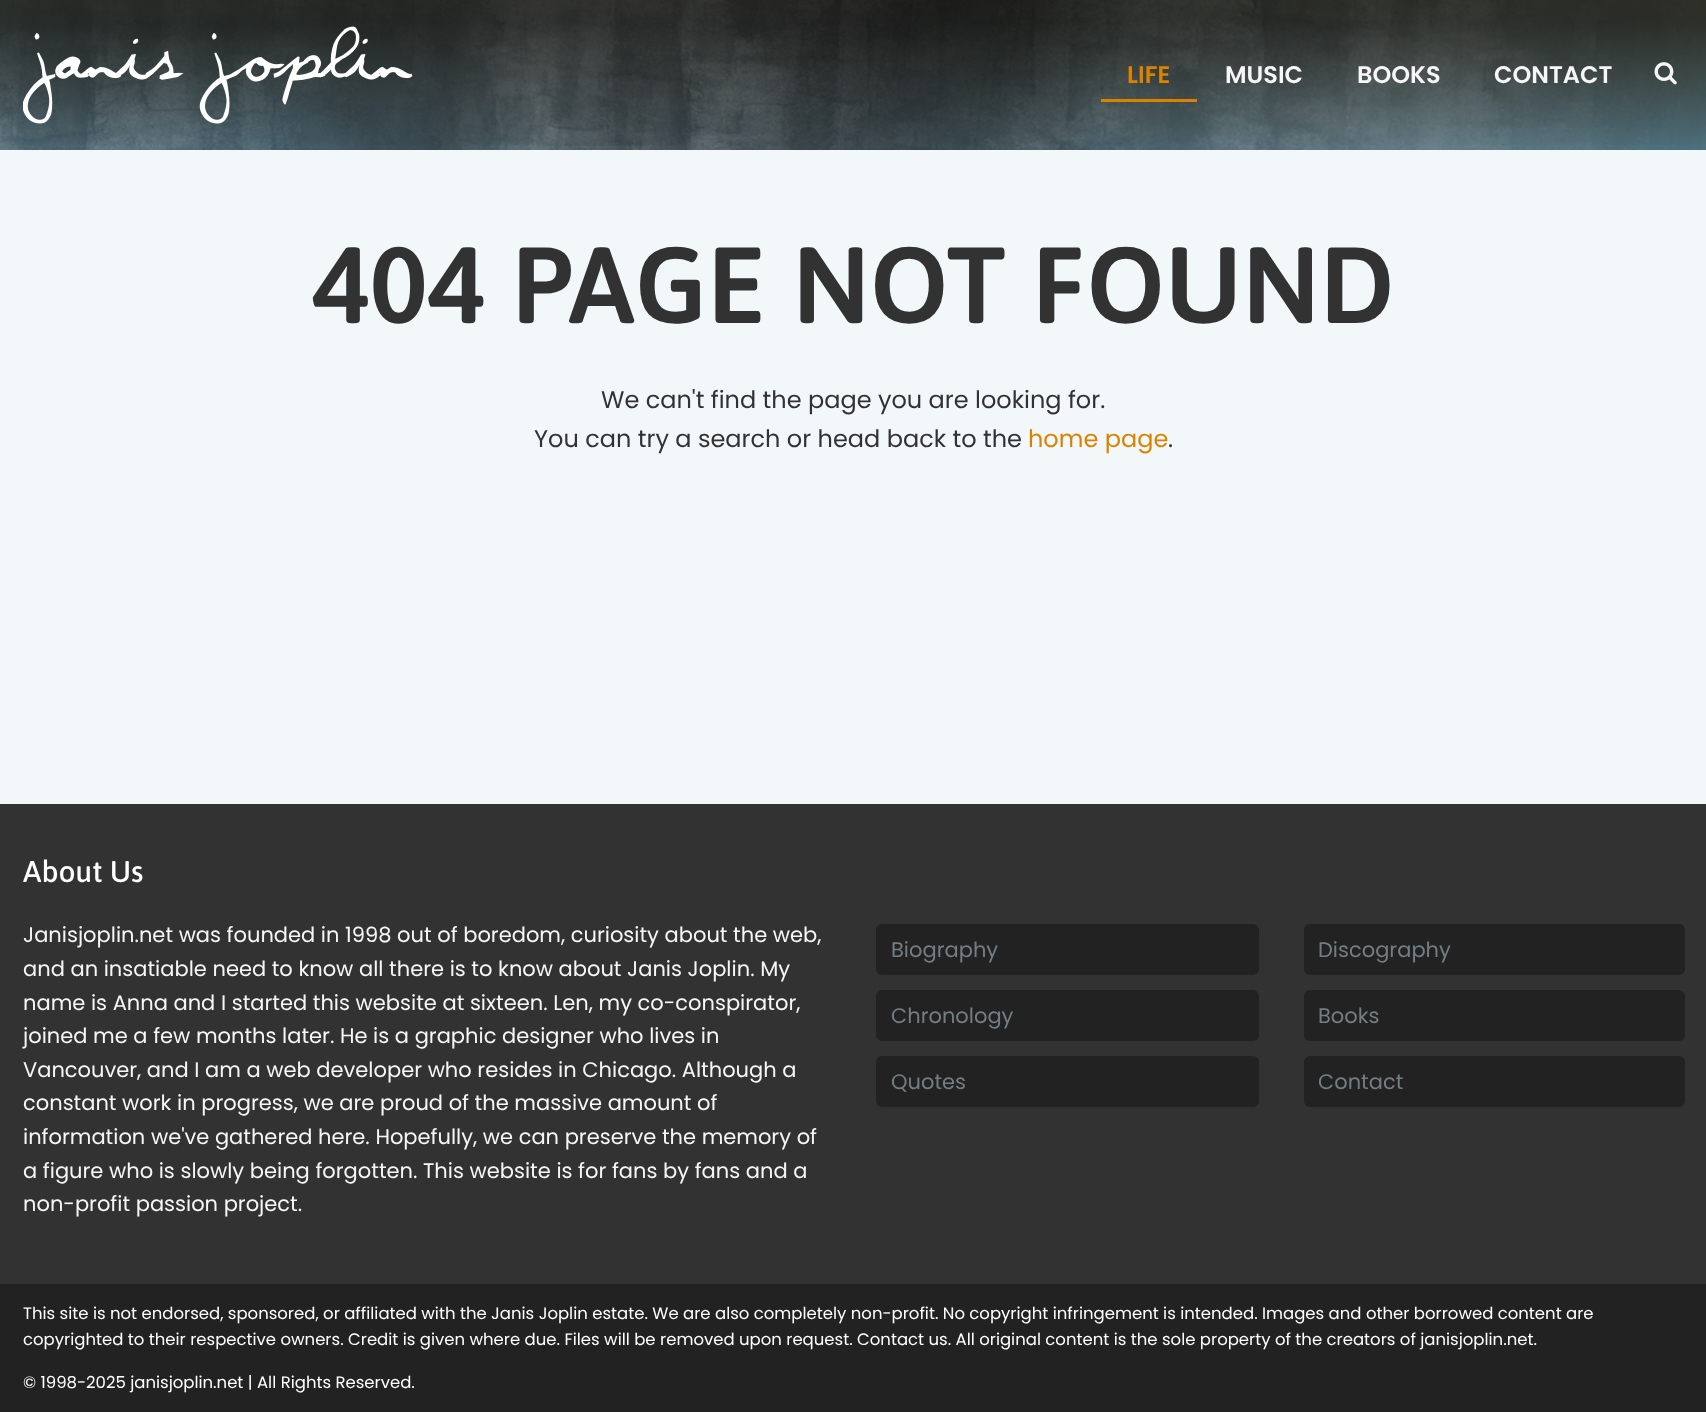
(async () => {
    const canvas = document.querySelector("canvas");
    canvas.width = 1706;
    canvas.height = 1412;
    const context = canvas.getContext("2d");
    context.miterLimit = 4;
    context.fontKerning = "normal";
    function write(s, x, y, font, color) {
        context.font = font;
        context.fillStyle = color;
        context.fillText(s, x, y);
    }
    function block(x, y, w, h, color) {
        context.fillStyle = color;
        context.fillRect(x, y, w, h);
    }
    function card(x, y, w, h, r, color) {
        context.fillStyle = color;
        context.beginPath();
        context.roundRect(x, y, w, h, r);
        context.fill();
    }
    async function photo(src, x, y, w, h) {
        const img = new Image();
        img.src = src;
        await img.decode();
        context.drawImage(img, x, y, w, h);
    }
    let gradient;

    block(0, 0, 1706, 1412, "rgb(242, 247, 250)");
    gradient = context.createLinearGradient(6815, 1319, 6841, -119);
    gradient.addColorStop(0, "rgb(103, 151, 176)");
    gradient.addColorStop(0.33, "rgb(176, 128, 54)");
    gradient.addColorStop(0.67, "rgb(53, 145, 204)");
    gradient.addColorStop(1, "rgb(177, 111, 13)");
    context.fillStyle = gradient;
    context.fillRect(0, 0, 1706, 150);
    await photo("media/3.png", 0, 0, 1706, 150);
    gradient = context.createLinearGradient(854, 150, 854, 0);
    gradient.addColorStop(0, "rgba(0, 0, 0, 0)");
    gradient.addColorStop(0.85, "rgba(0, 0, 0, 0.55)");
    context.fillStyle = gradient;
    context.fillRect(0, 0, 1706, 145);
    await photo("media/1.png", 23, 26, 390, 98);
    write("LIFE", 1127, 83, "600 24px Poppins", "rgb(219, 131, 0)");
    block(1101, 99, 96, 3, "rgb(219, 131, 0)");
    write("MUSIC", 1225, 83, "600 24px Poppins", "rgb(246, 246, 246)");
    write("BOOKS", 1357, 83, "600 24px Poppins", "rgb(246, 246, 246)");
    write("CONTACT", 1494, 83, "600 24px Poppins", "rgb(246, 246, 246)");
    await photo("media/2.png", 1654, 62, 23, 23);
    write("404 PAGE NOT FOUND", 312, 323, "600 108px Asap", "rgb(50, 50, 50)");
    write("We can't find the page you are looking for.", 601, 408, "24px Poppins", "rgb(50, 50, 50)");
    write("You can try a search or head back to the", 534, 447, "24px Poppins", "rgb(50, 50, 50)");
    write("home page", 1028, 447, "24px Poppins", "rgb(219, 131, 0)");
    write(".", 1168, 447, "24px Poppins", "rgb(50, 50, 50)");
    block(0, 804, 1706, 480, "rgb(50, 50, 50)");
    write("About Us", 23, 882, "500 30px Asap", "rgb(255, 255, 255)");
    write("Janisjoplin.net was founded in 1998 out of boredom, curiosity about the web,", 23, 942, "21px Poppins", "rgb(246, 246, 246)");
    write("and an insatiable need to know all there is to know about Janis Joplin. My", 23, 976, "21px Poppins", "rgb(246, 246, 246)");
    write("name is Anna and I started this website at sixteen. Len, my co-conspirator,", 23, 1010, "21px Poppins", "rgb(246, 246, 246)");
    write("joined me a few months later. He is a graphic designer who lives in", 23, 1043, "21px Poppins", "rgb(246, 246, 246)");
    write("Vancouver, and I am a web developer who resides in Chicago. Although a", 23, 1077, "21px Poppins", "rgb(246, 246, 246)");
    write("constant work in progress, we are proud of the massive amount of", 23, 1110, "21px Poppins", "rgb(246, 246, 246)");
    write("information we've gathered here. Hopefully, we can preserve the memory of", 23, 1144, "21px Poppins", "rgb(246, 246, 246)");
    write("a figure who is slowly being forgotten. This website is for fans by fans and a", 23, 1178, "21px Poppins", "rgb(246, 246, 246)");
    write("non-profit passion project.", 23, 1211, "21px Poppins", "rgb(246, 246, 246)");
    card(876, 924, 383, 51, 6, "rgb(34, 34, 34)");
    write("Biography", 891, 957, "21px Poppins", "rgb(115, 126, 132)");
    card(876, 990, 383, 51, 6, "rgb(34, 34, 34)");
    write("Chronology", 891, 1023, "21px Poppins", "rgb(115, 126, 132)");
    card(876, 1056, 383, 51, 6, "rgb(34, 34, 34)");
    write("Quotes", 891, 1089, "21px Poppins", "rgb(115, 126, 132)");
    card(1304, 924, 381, 51, 6, "rgb(34, 34, 34)");
    write("Discography", 1318, 957, "21px Poppins", "rgb(115, 126, 132)");
    card(1304, 990, 381, 51, 6, "rgb(34, 34, 34)");
    write("Books", 1318, 1023, "21px Poppins", "rgb(115, 126, 132)");
    card(1304, 1056, 381, 51, 6, "rgb(34, 34, 34)");
    write("Contact", 1318, 1089, "21px Poppins", "rgb(115, 126, 132)");
    block(0, 1284, 1706, 128, "rgb(34, 34, 34)");
    write("This site is not endorsed, sponsored, or affiliated with the Janis Joplin estate. We are also completely non-profit. No copyright infringement is intended. Images and other borrowed content are", 23, 1319, "16.5px Poppins", "rgb(255, 255, 255)");
    write("copyrighted to their respective owners. Credit is given where due. Files will be removed upon request. Contact us. All original content is the sole property of the creators of janisjoplin.net.", 23, 1345, "16.5px Poppins", "rgb(255, 255, 255)");
    write("© 1998-2025 janisjoplin.net | All Rights Reserved.", 23, 1388, "16.5px Poppins", "rgb(255, 255, 255)");
})();
